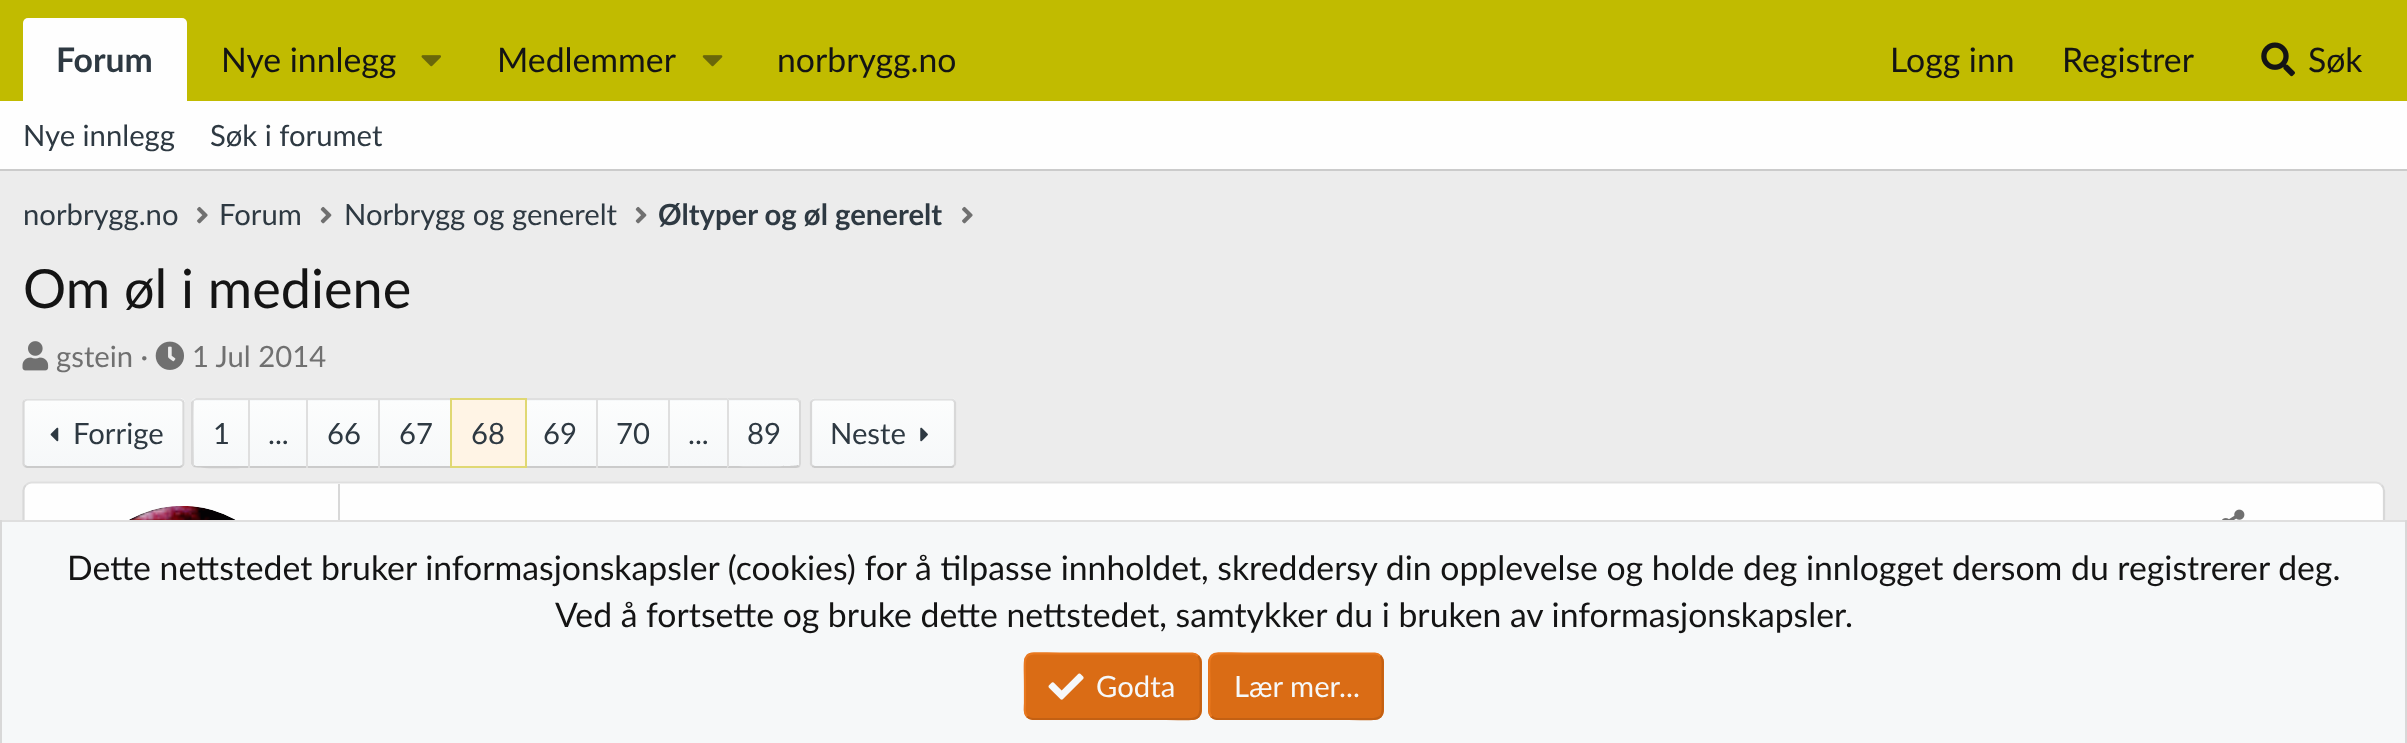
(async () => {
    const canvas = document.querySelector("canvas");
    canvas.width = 2407;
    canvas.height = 743;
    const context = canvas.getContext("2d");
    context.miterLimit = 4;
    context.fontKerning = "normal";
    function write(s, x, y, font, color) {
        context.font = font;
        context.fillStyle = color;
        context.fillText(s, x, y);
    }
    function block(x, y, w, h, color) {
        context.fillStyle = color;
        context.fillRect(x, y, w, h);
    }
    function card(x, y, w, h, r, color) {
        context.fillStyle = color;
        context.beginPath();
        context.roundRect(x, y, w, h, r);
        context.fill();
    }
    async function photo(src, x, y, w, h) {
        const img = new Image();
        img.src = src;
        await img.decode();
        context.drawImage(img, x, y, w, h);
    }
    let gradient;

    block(0, 0, 2407, 743, "rgb(236, 236, 236)");
    block(0, 0, 2407, 101, "rgb(193, 187, 0)");
    context.fillStyle = "rgb(254, 254, 254)";
    context.beginPath();
    context.roundRect(23, 18, 164, 83, [5, 5, 0, 0]);
    context.fill();
    write("Forum", 56, 72, "bold 33.75px Lato", "rgb(46, 57, 66)");
    write("Nye innlegg", 221, 72, "33.75px Lato", "rgb(20, 20, 20)");
    await photo("media/1.png", 421, 55, 20, 12);
    write("Medlemmer", 497, 72, "33.75px Lato", "rgb(20, 20, 20)");
    await photo("media/2.png", 702, 55, 21, 12);
    write("norbrygg.no", 777, 72, "33.75px Lato", "rgb(20, 20, 20)");
    write("Logg inn", 1890, 72, "33.75px Lato", "rgb(20, 20, 20)");
    write("Registrer", 2062, 72, "33.75px Lato", "rgb(20, 20, 20)");
    await photo("media/3.png", 2261, 42, 34, 35);
    write("Søk", 2308, 72, "33.75px Lato", "rgb(20, 20, 20)");
    block(0, 101, 2407, 68, "rgb(254, 254, 254)");
    block(0, 169, 2407, 2, "rgb(203, 203, 203)");
    write("Nye innlegg", 23, 146, "29.25px Lato", "rgb(46, 57, 66)");
    write("Søk i forumet", 210, 146, "29.25px Lato", "rgb(46, 57, 66)");
    write("norbrygg.no", 23, 225, "29.25px Lato", "rgb(46, 57, 66)");
    await photo("media/4.png", 197, 206, 11, 18);
    write("Forum", 219, 225, "29.25px Lato", "rgb(46, 57, 66)");
    await photo("media/5.png", 320, 206, 12, 18);
    write("Norbrygg og generelt", 344, 225, "29.25px Lato", "rgb(46, 57, 66)");
    await photo("media/5.png", 635, 206, 12, 18);
    write("Øltyper og øl generelt", 658, 225, "bold 29.25px Lato", "rgb(46, 57, 66)");
    await photo("media/4.png", 962, 206, 11, 18);
    write("Om øl i mediene", 23, 308, "54px Lato", "rgb(20, 20, 20)");
    await photo("media/6.png", 22, 341, 27, 30);
    write("gstein ·", 56, 367, "29.25px Lato", "rgb(112, 112, 112)");
    await photo("media/7.png", 155, 341, 29, 29);
    write("1 Jul 2014", 192, 367, "29.25px Lato", "rgb(112, 112, 112)");
    context.save();
    context.beginPath();
    context.roundRect(23, 398, 162, 70, 5);
    context.clip();
    gradient = context.createLinearGradient(104, 401, 104, 335);
    gradient.addColorStop(0, "rgb(246, 248, 249)");
    gradient.addColorStop(1, "rgb(252, 253, 253)");
    context.fillStyle = gradient;
    context.fillRect(23, 398, 162, 3);
    gradient = context.createLinearGradient(104, 466, 104, 401);
    gradient.addColorStop(0, "rgb(246, 248, 249)");
    gradient.addColorStop(1, "rgb(252, 253, 253)");
    context.fillStyle = gradient;
    context.fillRect(23, 401, 162, 65);
    gradient = context.createLinearGradient(104, 531, 104, 466);
    gradient.addColorStop(0, "rgb(246, 248, 249)");
    gradient.addColorStop(1, "rgb(252, 253, 253)");
    context.fillStyle = gradient;
    context.fillRect(23, 466, 162, 2);
    context.restore();
    context.beginPath();
    context.moveTo(24.5, 400.5);
    context.lineTo(27, 399.5);
    context.lineTo(180, 399.5);
    context.lineTo(182.5, 400.5);
    context.strokeStyle = "rgb(223, 223, 223)";
    context.lineWidth = 2.2;
    context.stroke();
    context.beginPath();
    context.moveTo(182.5, 400.5);
    context.lineTo(183.5, 402.5);
    context.lineTo(183.5, 464);
    context.lineTo(182.5, 466);
    context.strokeStyle = "rgb(216, 216, 216)";
    context.stroke();
    context.beginPath();
    context.moveTo(182.5, 466);
    context.lineTo(180, 467);
    context.lineTo(27, 467);
    context.lineTo(24.5, 466);
    context.strokeStyle = "rgb(203, 203, 203)";
    context.stroke();
    context.beginPath();
    context.moveTo(24.5, 466);
    context.lineTo(23.5, 464);
    context.lineTo(23.5, 402.5);
    context.lineTo(24.5, 400.5);
    context.strokeStyle = "rgb(216, 216, 216)";
    context.stroke();
    await photo("media/8.png", 50, 427, 9, 15);
    write("Forrige", 73, 444, "29.25px Lato", "rgb(46, 57, 66)");
    context.save();
    context.beginPath();
    context.roundRect(191, 398, 57, 70, [5, 0, 0, 5]);
    context.clip();
    gradient = context.createLinearGradient(221, 401, 221, 335);
    gradient.addColorStop(0, "rgb(246, 248, 249)");
    gradient.addColorStop(1, "rgb(252, 253, 253)");
    context.fillStyle = gradient;
    context.fillRect(191, 398, 57, 3);
    gradient = context.createLinearGradient(221, 466, 221, 401);
    gradient.addColorStop(0, "rgb(246, 248, 249)");
    gradient.addColorStop(1, "rgb(252, 253, 253)");
    context.fillStyle = gradient;
    context.fillRect(191, 401, 57, 65);
    gradient = context.createLinearGradient(221, 531, 221, 466);
    gradient.addColorStop(0, "rgb(246, 248, 249)");
    gradient.addColorStop(1, "rgb(252, 253, 253)");
    context.fillStyle = gradient;
    context.fillRect(191, 466, 10, 2);
    context.restore();
    context.fillStyle = "rgb(223, 223, 223)";
    context.beginPath();
    context.moveTo(196, 400);
    context.lineTo(194, 401);
    context.lineTo(193, 400);
    context.lineTo(196, 398);
    context.lineTo(248, 398);
    context.lineTo(248, 400);
    context.closePath();
    context.fill();
    context.fillStyle = "rgb(203, 203, 203)";
    context.beginPath();
    context.moveTo(248, 468);
    context.bezierCurveTo(242, 468, 194, 469, 193, 467);
    context.lineTo(194, 465);
    context.lineTo(196, 466);
    context.lineTo(248, 466);
    context.closePath();
    context.fill();
    context.fillStyle = "rgb(216, 216, 216)";
    context.beginPath();
    context.moveTo(191, 402);
    context.lineTo(193, 400);
    context.lineTo(194, 401);
    context.bezierCurveTo(193, 403, 194, 464, 194, 465);
    context.lineTo(193, 467);
    context.lineTo(191, 464);
    context.closePath();
    context.fill();
    write("1", 213, 444, "29.25px Lato", "rgb(46, 57, 66)");
    gradient = context.createLinearGradient(278, 401, 278, 335);
    gradient.addColorStop(0, "rgb(246, 248, 249)");
    gradient.addColorStop(1, "rgb(252, 253, 253)");
    context.fillStyle = gradient;
    context.fillRect(248, 400, 58, 1);
    gradient = context.createLinearGradient(278, 466, 278, 401);
    gradient.addColorStop(0, "rgb(246, 248, 249)");
    gradient.addColorStop(1, "rgb(252, 253, 253)");
    context.fillStyle = gradient;
    context.fillRect(250, 401, 56, 65);
    block(248, 398, 202, 2, "rgb(223, 223, 223)");
    block(248, 466, 202, 2, "rgb(203, 203, 203)");
    block(248, 398, 2, 70, "rgb(223, 223, 223)");
    write("...", 268, 444, "29.25px Lato", "rgb(46, 57, 66)");
    gradient = context.createLinearGradient(343, 401, 343, 335);
    gradient.addColorStop(0, "rgb(246, 248, 249)");
    gradient.addColorStop(1, "rgb(252, 253, 253)");
    context.fillStyle = gradient;
    context.fillRect(306, 400, 72, 1);
    gradient = context.createLinearGradient(343, 466, 343, 401);
    gradient.addColorStop(0, "rgb(246, 248, 249)");
    gradient.addColorStop(1, "rgb(252, 253, 253)");
    context.fillStyle = gradient;
    context.fillRect(308, 401, 70, 65);
    block(306, 398, 2, 70, "rgb(223, 223, 223)");
    write("66", 327, 444, "29.25px Lato", "rgb(46, 57, 66)");
    gradient = context.createLinearGradient(415, 401, 415, 335);
    gradient.addColorStop(0, "rgb(246, 248, 249)");
    gradient.addColorStop(1, "rgb(252, 253, 253)");
    context.fillStyle = gradient;
    context.fillRect(378, 400, 72, 1);
    gradient = context.createLinearGradient(415, 466, 415, 401);
    gradient.addColorStop(0, "rgb(246, 248, 249)");
    gradient.addColorStop(1, "rgb(252, 253, 253)");
    context.fillStyle = gradient;
    context.fillRect(380, 401, 70, 65);
    block(378, 398, 2, 70, "rgb(223, 223, 223)");
    write("67", 399, 444, "29.25px Lato", "rgb(46, 57, 66)");
    context.fillStyle = "rgb(255, 244, 229)";
    context.beginPath();
    context.rect(451, 399, 75, 68);
    context.fill();
    context.strokeStyle = "rgb(224, 216, 115)";
    context.lineWidth = 2;
    context.stroke();
    write("68", 471, 444, "29.25px Lato", "rgb(46, 57, 66)");
    gradient = context.createLinearGradient(561, 401, 561, 335);
    gradient.addColorStop(0, "rgb(246, 248, 249)");
    gradient.addColorStop(1, "rgb(252, 253, 253)");
    context.fillStyle = gradient;
    context.fillRect(527, 400, 69, 1);
    gradient = context.createLinearGradient(561, 466, 561, 401);
    gradient.addColorStop(0, "rgb(246, 248, 249)");
    gradient.addColorStop(1, "rgb(252, 253, 253)");
    context.fillStyle = gradient;
    context.fillRect(527, 401, 69, 65);
    block(527, 398, 200, 2, "rgb(223, 223, 223)");
    block(527, 466, 200, 2, "rgb(203, 203, 203)");
    write("69", 543, 444, "29.25px Lato", "rgb(46, 57, 66)");
    gradient = context.createLinearGradient(633, 401, 633, 335);
    gradient.addColorStop(0, "rgb(246, 248, 249)");
    gradient.addColorStop(1, "rgb(252, 253, 253)");
    context.fillStyle = gradient;
    context.fillRect(596, 400, 72, 1);
    gradient = context.createLinearGradient(633, 466, 633, 401);
    gradient.addColorStop(0, "rgb(246, 248, 249)");
    gradient.addColorStop(1, "rgb(252, 253, 253)");
    context.fillStyle = gradient;
    context.fillRect(598, 401, 70, 65);
    block(596, 398, 2, 70, "rgb(223, 223, 223)");
    write("70", 616, 444, "29.25px Lato", "rgb(46, 57, 66)");
    gradient = context.createLinearGradient(699, 401, 699, 335);
    gradient.addColorStop(0, "rgb(246, 248, 249)");
    gradient.addColorStop(1, "rgb(252, 253, 253)");
    context.fillStyle = gradient;
    context.fillRect(668, 400, 59, 1);
    gradient = context.createLinearGradient(699, 466, 699, 401);
    gradient.addColorStop(0, "rgb(246, 248, 249)");
    gradient.addColorStop(1, "rgb(252, 253, 253)");
    context.fillStyle = gradient;
    context.fillRect(670, 401, 57, 65);
    block(668, 398, 2, 70, "rgb(223, 223, 223)");
    write("...", 688, 444, "29.25px Lato", "rgb(46, 57, 66)");
    context.save();
    context.beginPath();
    context.roundRect(727, 398, 74, 70, [0, 5, 5, 0]);
    context.clip();
    gradient = context.createLinearGradient(764, 401, 764, 335);
    gradient.addColorStop(0, "rgb(246, 248, 249)");
    gradient.addColorStop(1, "rgb(252, 253, 253)");
    context.fillStyle = gradient;
    context.fillRect(727, 398, 74, 3);
    gradient = context.createLinearGradient(764, 466, 764, 401);
    gradient.addColorStop(0, "rgb(246, 248, 249)");
    gradient.addColorStop(1, "rgb(252, 253, 253)");
    context.fillStyle = gradient;
    context.fillRect(729, 401, 72, 65);
    context.restore();
    context.fillStyle = "rgb(223, 223, 223)";
    context.beginPath();
    context.moveTo(729, 400);
    context.lineTo(727, 398);
    context.lineTo(798, 398);
    context.lineTo(800, 400);
    context.lineTo(798, 401);
    context.lineTo(796, 400);
    context.closePath();
    context.fill();
    context.fillStyle = "rgb(216, 216, 216)";
    context.beginPath();
    context.moveTo(801, 464);
    context.lineTo(801, 403);
    context.bezierCurveTo(801, 402, 801, 400, 800, 400);
    context.lineTo(798, 401);
    context.lineTo(799, 403);
    context.lineTo(799, 465);
    context.lineTo(798, 465);
    context.lineTo(800, 467);
    context.closePath();
    context.fill();
    context.fillStyle = "rgb(203, 203, 203)";
    context.beginPath();
    context.moveTo(727, 468);
    context.lineTo(796, 468);
    context.bezierCurveTo(798, 468, 799, 467, 800, 467);
    context.lineTo(798, 465);
    context.bezierCurveTo(796, 467, 737, 466, 729, 466);
    context.closePath();
    context.fill();
    context.fillStyle = "rgb(223, 223, 223)";
    context.beginPath();
    context.moveTo(727, 468);
    context.lineTo(727, 398);
    context.lineTo(729, 400);
    context.lineTo(729, 466);
    context.closePath();
    context.fill();
    write("89", 747, 444, "29.25px Lato", "rgb(46, 57, 66)");
    context.save();
    context.beginPath();
    context.roundRect(810, 398, 146, 70, 5);
    context.clip();
    gradient = context.createLinearGradient(883, 401, 883, 335);
    gradient.addColorStop(0, "rgb(246, 248, 249)");
    gradient.addColorStop(1, "rgb(252, 253, 253)");
    context.fillStyle = gradient;
    context.fillRect(810, 398, 146, 3);
    gradient = context.createLinearGradient(883, 466, 883, 401);
    gradient.addColorStop(0, "rgb(246, 248, 249)");
    gradient.addColorStop(1, "rgb(252, 253, 253)");
    context.fillStyle = gradient;
    context.fillRect(810, 401, 146, 65);
    gradient = context.createLinearGradient(883, 531, 883, 466);
    gradient.addColorStop(0, "rgb(246, 248, 249)");
    gradient.addColorStop(1, "rgb(252, 253, 253)");
    context.fillStyle = gradient;
    context.fillRect(810, 466, 146, 2);
    context.restore();
    context.beginPath();
    context.moveTo(812, 400.5);
    context.lineTo(814.5, 399.5);
    context.lineTo(952, 399.5);
    context.lineTo(954, 400.5);
    context.strokeStyle = "rgb(223, 223, 223)";
    context.lineWidth = 2.2;
    context.stroke();
    context.beginPath();
    context.moveTo(954, 400.5);
    context.lineTo(955, 402.5);
    context.lineTo(955, 464);
    context.lineTo(954, 466);
    context.strokeStyle = "rgb(216, 216, 216)";
    context.stroke();
    context.beginPath();
    context.moveTo(954, 466);
    context.lineTo(952, 467);
    context.lineTo(814.5, 467);
    context.lineTo(812, 466);
    context.strokeStyle = "rgb(203, 203, 203)";
    context.stroke();
    context.beginPath();
    context.moveTo(812, 466);
    context.lineTo(811, 464);
    context.lineTo(811, 402.5);
    context.lineTo(812, 400.5);
    context.strokeStyle = "rgb(216, 216, 216)";
    context.stroke();
    write("Neste", 830, 444, "29.25px Lato", "rgb(46, 57, 66)");
    await photo("media/9.png", 920, 427, 8, 15);
    card(23, 482, 2362, 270, 9, "rgb(254, 254, 254)");
    context.beginPath();
    context.moveTo(26, 485);
    context.bezierCurveTo(27.5, 483.5, 29.5, 482.5, 31.5, 482.5);
    context.lineTo(2376, 482.5);
    context.bezierCurveTo(2378, 482.5, 2380, 483.5, 2381.5, 485);
    context.strokeStyle = "rgb(223, 223, 223)";
    context.stroke();
    context.beginPath();
    context.moveTo(2381.5, 485);
    context.bezierCurveTo(2383, 486.5, 2384, 488.5, 2384, 490.5);
    context.lineTo(2384, 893);
    context.bezierCurveTo(2384, 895.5, 2383, 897.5, 2381.5, 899);
    context.strokeStyle = "rgb(216, 216, 216)";
    context.stroke();
    context.beginPath();
    context.moveTo(26, 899);
    context.bezierCurveTo(24.5, 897.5, 23.5, 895.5, 23.5, 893);
    context.lineTo(23.5, 490.5);
    context.bezierCurveTo(23.5, 488.5, 24.5, 486.5, 26, 485);
    context.stroke();
    context.beginPath();
    context.moveTo(32, 484);
    context.lineTo(340, 484);
    context.lineTo(340, 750);
    context.lineTo(32, 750);
    context.bezierCurveTo(28, 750, 25, 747, 25, 743);
    context.lineTo(25, 491);
    context.bezierCurveTo(25, 487, 28, 484, 32, 484);
    context.closePath();
    context.fill();
    block(338, 484, 2, 36, "rgb(216, 216, 216)");
    await photo("media/10.png", 129, 506, 107, 14);
    await photo("media/11.png", 2222, 509, 23, 11);
    block(2, 522, 2403, 221, "rgb(246, 248, 249)");
    block(0, 520, 2407, 2, "rgb(223, 223, 223)");
    block(2405, 520, 2, 223, "rgb(216, 216, 216)");
    block(0, 520, 2, 223, "rgb(216, 216, 216)");
    write("Dette nettstedet bruker informasjonskapsler (cookies) for å tilpasse innholdet, skreddersy din opplevelse og holde deg innlogget dersom du registrerer deg.", 67, 580, "33.75px Lato", "rgb(20, 20, 20)");
    write("Ved å fortsette og bruke dette nettstedet, samtykker du i bruken av informasjonskapsler.", 555, 627, "33.75px Lato", "rgb(20, 20, 20)");
    card(1024, 653, 178, 67, 9, "rgb(218, 108, 21)");
    context.beginPath();
    context.moveTo(1198, 656);
    context.bezierCurveTo(1201.5, 659.5, 1200.5, 665.5, 1200.5, 670);
    context.lineTo(1200.5, 686);
    context.bezierCurveTo(1200.5, 724, 1205.5, 719, 1166, 719);
    context.lineTo(1033, 719);
    context.bezierCurveTo(1030.5, 719, 1028.5, 718, 1027, 716.5);
    context.strokeStyle = "rgb(195, 96, 19)";
    context.stroke();
    context.beginPath();
    context.moveTo(1027, 716.5);
    context.bezierCurveTo(1023.5, 713, 1025, 707, 1025, 703);
    context.lineTo(1025, 686);
    context.bezierCurveTo(1025, 648.5, 1019.5, 653.5, 1059.5, 653.5);
    context.lineTo(1192.5, 653.5);
    context.bezierCurveTo(1194.5, 653.5, 1196.5, 654.5, 1198, 656);
    context.strokeStyle = "rgb(233, 120, 31)";
    context.stroke();
    await photo("media/12.png", 1048, 673, 36, 27);
    write("Godta", 1096, 697, "29.25px Lato", "rgb(246, 248, 249)");
    card(1208, 653, 176, 67, 9, "rgb(218, 108, 21)");
    context.beginPath();
    context.moveTo(1380.5, 656);
    context.bezierCurveTo(1384, 659.5, 1382.5, 665.5, 1382.5, 670);
    context.lineTo(1382.5, 686);
    context.bezierCurveTo(1382.5, 724, 1388, 719, 1348.5, 719);
    context.lineTo(1217, 719);
    context.bezierCurveTo(1215, 719, 1213, 718, 1211.5, 716.5);
    context.strokeStyle = "rgb(195, 96, 19)";
    context.stroke();
    context.beginPath();
    context.moveTo(1211.5, 716.5);
    context.bezierCurveTo(1208, 713, 1209.5, 707, 1209.5, 703);
    context.lineTo(1209.5, 686);
    context.bezierCurveTo(1209.5, 648.5, 1204, 653.5, 1243.5, 653.5);
    context.lineTo(1375, 653.5);
    context.bezierCurveTo(1377, 653.5, 1379, 654.5, 1380.5, 656);
    context.strokeStyle = "rgb(233, 120, 31)";
    context.stroke();
    write("Lær mer...", 1234, 697, "29.25px Lato", "rgb(246, 248, 249)");
})();
